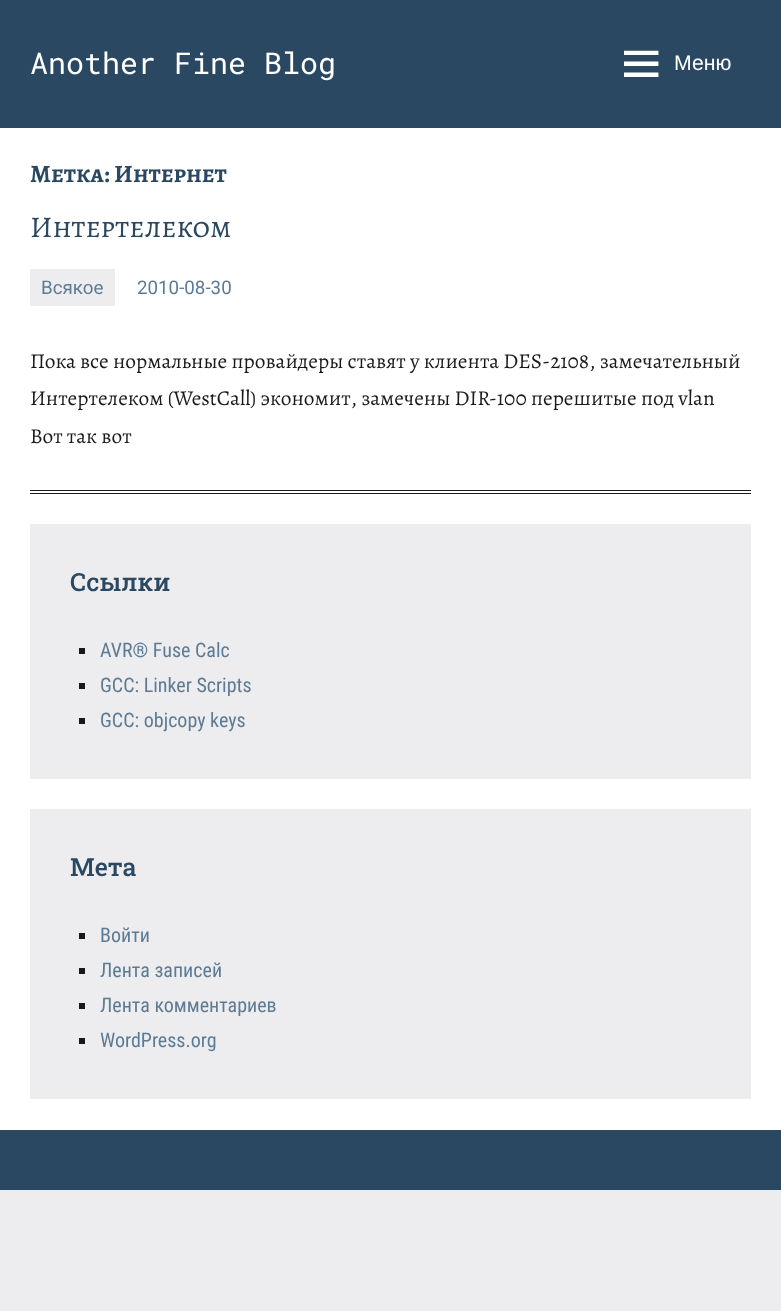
(async () => {
    const canvas = document.querySelector("canvas");
    canvas.width = 781;
    canvas.height = 1311;
    const context = canvas.getContext("2d");
    context.miterLimit = 4;
    context.fontKerning = "normal";
    function write(s, x, y, font, color) {
        context.font = font;
        context.fillStyle = color;
        context.fillText(s, x, y);
    }
    function block(x, y, w, h, color) {
        context.fillStyle = color;
        context.fillRect(x, y, w, h);
    }
    async function photo(src, x, y, w, h) {
        const img = new Image();
        img.src = src;
        await img.decode();
        context.drawImage(img, x, y, w, h);
    }

    block(0, 0, 781, 1311, "rgb(237, 237, 239)");
    block(0, 0, 781, 128, "rgb(42, 72, 97)");
    write("Another Fine Blog", 30, 74, "30px Roboto Mono", "rgb(255, 255, 255)");
    await photo("media/1.png", 624, 50, 35, 27);
    write("Меню", 674, 70, "21.25px Liberation Sans", "rgb(255, 255, 255)");
    block(0, 128, 781, 1002, "rgb(255, 255, 255)");
    write("Метка: Интернет", 30, 182, "bold 25px Alegreya SC", "rgb(42, 72, 97)");
    block(30, 490, 721, 1, "rgb(26, 26, 26)");
    block(30, 493, 721, 1, "rgb(26, 26, 26)");
    write("Интертелеком", 30, 237, "30px Alegreya SC", "rgb(42, 72, 97)");
    block(30, 269, 85, 37, "rgb(237, 237, 239)");
    write("Всякое", 41, 294, "18.75px Roboto", "rgb(93, 123, 148)");
    write("2010-08-30", 137, 294, "18.75px Roboto", "rgb(93, 123, 148)");
    write("Пока все нормальные провайдеры ставят у клиента DES-2108, замечательный", 30, 368, "21.25px Alegreya", "rgb(26, 26, 26)");
    write("Интертелеком (WestCall) экономит, замечены DIR-100 перешитые под vlan", 30, 405, "21.25px Alegreya", "rgb(26, 26, 26)");
    write("Вот так вот", 30, 443, "21.25px Alegreya", "rgb(26, 26, 26)");
    block(30, 524, 721, 255, "rgb(237, 237, 239)");
    write("Ссылки", 70, 591, "500 25px Roboto Slab", "rgb(42, 72, 97)");
    block(79, 648, 6, 6, "rgb(24, 24, 24)");
    write("AVR® Fuse Calc", 100, 657, "20px Roboto Condensed", "rgb(93, 123, 148)");
    block(79, 683, 6, 6, "rgb(24, 24, 24)");
    write("GCC: Linker Scripts", 100, 692, "20px Roboto Condensed", "rgb(93, 123, 148)");
    block(79, 718, 6, 6, "rgb(24, 24, 24)");
    write("GCC: objcopy keys", 100, 727, "20px Roboto Condensed", "rgb(93, 123, 148)");
    block(30, 809, 721, 290, "rgb(237, 237, 239)");
    write("Мета", 70, 876, "500 25px Roboto Slab", "rgb(42, 72, 97)");
    block(79, 933, 6, 6, "rgb(24, 24, 24)");
    write("Войти", 100, 942, "20px Roboto Condensed", "rgb(93, 123, 148)");
    block(79, 968, 6, 6, "rgb(24, 24, 24)");
    write("Лента записей", 100, 977, "20px Roboto Condensed", "rgb(93, 123, 148)");
    block(79, 1003, 6, 6, "rgb(24, 24, 24)");
    write("Лента комментариев", 100, 1012, "20px Roboto Condensed", "rgb(93, 123, 148)");
    block(79, 1038, 6, 6, "rgb(24, 24, 24)");
    write("WordPress.org", 100, 1047, "20px Roboto Condensed", "rgb(93, 123, 148)");
    block(0, 1130, 781, 60, "rgb(42, 72, 97)");
})();
